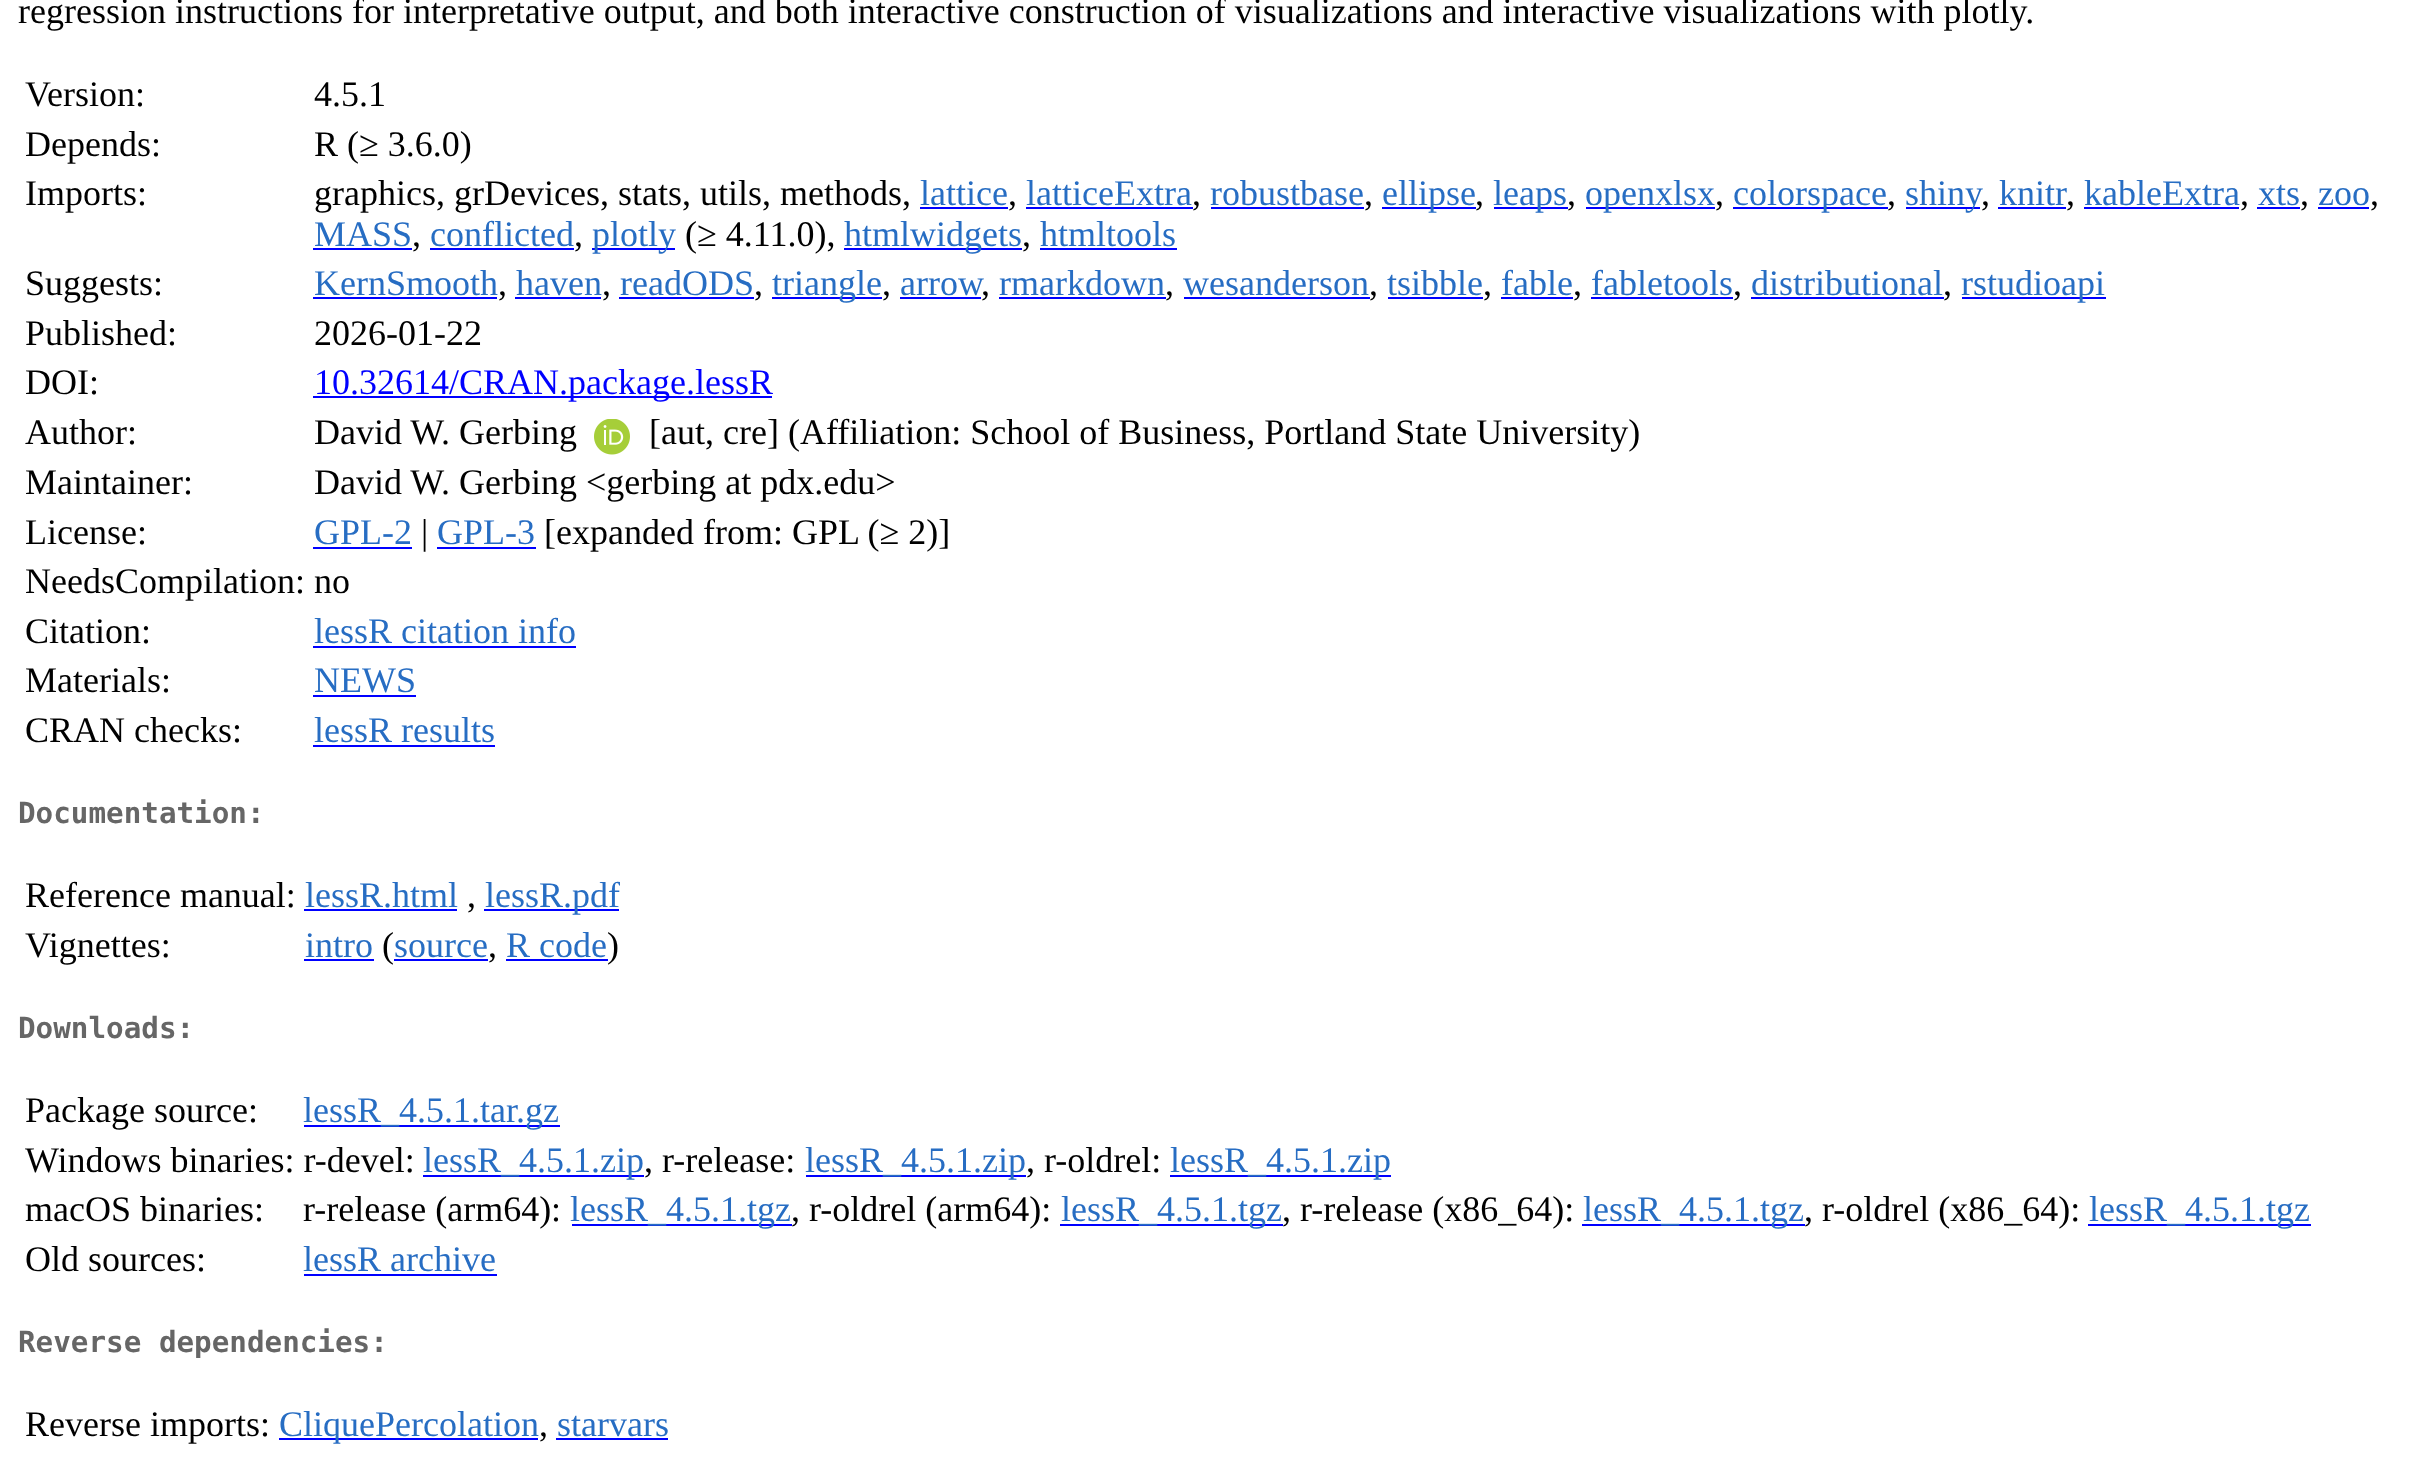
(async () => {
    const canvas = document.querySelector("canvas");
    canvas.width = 2409;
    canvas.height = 1483;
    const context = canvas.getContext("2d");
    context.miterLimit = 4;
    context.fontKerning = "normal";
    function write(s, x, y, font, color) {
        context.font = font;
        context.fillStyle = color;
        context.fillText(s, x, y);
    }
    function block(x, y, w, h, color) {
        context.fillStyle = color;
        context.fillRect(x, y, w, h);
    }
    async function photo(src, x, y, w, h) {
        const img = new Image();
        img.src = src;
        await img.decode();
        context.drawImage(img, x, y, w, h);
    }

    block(0, 0, 2409, 1483, "rgb(255, 255, 255)");
    write("regression instructions for interpretative output, and both interactive construction of visualizations and interactive visualizations with plotly.", 18, 23, "36px Liberation Serif", "rgb(0, 0, 0)");
    write("Version:", 25, 106, "36px Liberation Serif", "rgb(0, 0, 0)");
    write("4.5.1", 314, 106, "36px Liberation Serif", "rgb(0, 0, 0)");
    write("Depends:", 25, 156, "36px Liberation Serif", "rgb(0, 0, 0)");
    write("R (≥ 3.6.0)", 314, 156, "36px Liberation Serif", "rgb(0, 0, 0)");
    write("Imports:", 25, 205, "36px Liberation Serif", "rgb(0, 0, 0)");
    write("graphics, grDevices, stats, utils, methods,", 314, 205, "36px Liberation Serif", "rgb(0, 0, 0)");
    write("lattice", 920, 205, "36px Liberation Serif", "rgb(39, 109, 195)");
    block(920, 207, 88, 2, "rgb(0, 0, 255)");
    write(",", 1008, 205, "36px Liberation Serif", "rgb(0, 0, 0)");
    write("latticeExtra", 1026, 205, "36px Liberation Serif", "rgb(39, 109, 195)");
    block(1026, 207, 167, 2, "rgb(0, 0, 255)");
    write(",", 1192, 205, "36px Liberation Serif", "rgb(0, 0, 0)");
    write("robustbase", 1210, 205, "36px Liberation Serif", "rgb(39, 109, 195)");
    block(1211, 207, 153, 2, "rgb(0, 0, 255)");
    write(",", 1364, 205, "36px Liberation Serif", "rgb(0, 0, 0)");
    block(1382, 207, 94, 2, "rgb(0, 0, 255)");
    write("ellipse", 1382, 205, "36px Liberation Serif", "rgb(39, 109, 195)");
    write(",", 1475, 205, "36px Liberation Serif", "rgb(0, 0, 0)");
    block(1494, 207, 74, 2, "rgb(0, 0, 255)");
    write("leaps", 1493, 205, "36px Liberation Serif", "rgb(39, 109, 195)");
    write(",", 1567, 205, "36px Liberation Serif", "rgb(0, 0, 0)");
    block(1586, 207, 129, 2, "rgb(0, 0, 255)");
    write("openxlsx", 1585, 205, "36px Liberation Serif", "rgb(39, 109, 195)");
    write(",", 1715, 205, "36px Liberation Serif", "rgb(0, 0, 0)");
    block(1733, 207, 155, 2, "rgb(0, 0, 255)");
    write("colorspace", 1733, 205, "36px Liberation Serif", "rgb(39, 109, 195)");
    write(",", 1887, 205, "36px Liberation Serif", "rgb(0, 0, 0)");
    block(1906, 207, 74, 2, "rgb(0, 0, 255)");
    write("shiny", 1905, 205, "36px Liberation Serif", "rgb(39, 109, 195)");
    write(",", 1981, 205, "36px Liberation Serif", "rgb(0, 0, 0)");
    write("knitr", 1999, 205, "36px Liberation Serif", "rgb(39, 109, 195)");
    block(1998, 207, 68, 2, "rgb(0, 0, 255)");
    write(",", 2066, 205, "36px Liberation Serif", "rgb(0, 0, 0)");
    write("kableExtra", 2084, 205, "36px Liberation Serif", "rgb(39, 109, 195)");
    block(2084, 207, 155, 2, "rgb(0, 0, 255)");
    write(",", 2240, 205, "36px Liberation Serif", "rgb(0, 0, 0)");
    write("xts", 2258, 205, "36px Liberation Serif", "rgb(39, 109, 195)");
    block(2257, 207, 43, 2, "rgb(0, 0, 255)");
    write(",", 2300, 205, "36px Liberation Serif", "rgb(0, 0, 0)");
    write("zoo", 2318, 205, "36px Liberation Serif", "rgb(39, 109, 195)");
    block(2318, 207, 51, 2, "rgb(0, 0, 255)");
    write(",", 2370, 205, "36px Liberation Serif", "rgb(0, 0, 0)");
    write("MASS", 314, 246, "36px Liberation Serif", "rgb(39, 109, 195)");
    block(313, 248, 99, 2, "rgb(0, 0, 255)");
    write(",", 412, 246, "36px Liberation Serif", "rgb(0, 0, 0)");
    write("conflicted", 430, 246, "36px Liberation Serif", "rgb(39, 109, 195)");
    block(430, 248, 144, 2, "rgb(0, 0, 255)");
    write(",", 574, 246, "36px Liberation Serif", "rgb(0, 0, 0)");
    block(592, 248, 83, 2, "rgb(0, 0, 255)");
    write("plotly", 592, 246, "36px Liberation Serif", "rgb(39, 109, 195)");
    write("(≥ 4.11.0),", 685, 246, "36px Liberation Serif", "rgb(0, 0, 0)");
    block(844, 248, 178, 2, "rgb(0, 0, 255)");
    write("htmlwidgets", 844, 246, "36px Liberation Serif", "rgb(39, 109, 195)");
    write(",", 1022, 246, "36px Liberation Serif", "rgb(0, 0, 0)");
    write("htmltools", 1040, 246, "36px Liberation Serif", "rgb(39, 109, 195)");
    block(1040, 248, 137, 2, "rgb(0, 0, 255)");
    write("Suggests:", 25, 295, "36px Liberation Serif", "rgb(0, 0, 0)");
    write("KernSmooth", 314, 295, "36px Liberation Serif", "rgb(39, 109, 195)");
    block(313, 297, 184, 2, "rgb(0, 0, 255)");
    write(",", 498, 295, "36px Liberation Serif", "rgb(0, 0, 0)");
    write("haven", 516, 295, "36px Liberation Serif", "rgb(39, 109, 195)");
    block(515, 297, 86, 2, "rgb(0, 0, 255)");
    write(",", 602, 295, "36px Liberation Serif", "rgb(0, 0, 0)");
    write("readODS", 620, 295, "36px Liberation Serif", "rgb(39, 109, 195)");
    block(619, 297, 135, 2, "rgb(0, 0, 255)");
    write(",", 754, 295, "36px Liberation Serif", "rgb(0, 0, 0)");
    block(772, 297, 110, 2, "rgb(0, 0, 255)");
    write("triangle", 772, 295, "36px Liberation Serif", "rgb(39, 109, 195)");
    write(",", 882, 295, "36px Liberation Serif", "rgb(0, 0, 0)");
    write("arrow", 900, 295, "36px Liberation Serif", "rgb(39, 109, 195)");
    block(900, 297, 81, 2, "rgb(0, 0, 255)");
    write(",", 981, 295, "36px Liberation Serif", "rgb(0, 0, 0)");
    write("rmarkdown", 999, 295, "36px Liberation Serif", "rgb(39, 109, 195)");
    block(999, 297, 167, 2, "rgb(0, 0, 255)");
    write(",", 1165, 295, "36px Liberation Serif", "rgb(0, 0, 0)");
    write("wesanderson", 1183, 295, "36px Liberation Serif", "rgb(39, 109, 195)");
    block(1184, 297, 186, 2, "rgb(0, 0, 255)");
    write(",", 1369, 295, "36px Liberation Serif", "rgb(0, 0, 0)");
    write("tsibble", 1387, 295, "36px Liberation Serif", "rgb(39, 109, 195)");
    block(1388, 297, 95, 2, "rgb(0, 0, 255)");
    write(",", 1483, 295, "36px Liberation Serif", "rgb(0, 0, 0)");
    write("fable", 1501, 295, "36px Liberation Serif", "rgb(39, 109, 195)");
    block(1501, 297, 72, 2, "rgb(0, 0, 255)");
    write(",", 1573, 295, "36px Liberation Serif", "rgb(0, 0, 0)");
    write("fabletools", 1591, 295, "36px Liberation Serif", "rgb(39, 109, 195)");
    block(1591, 297, 142, 2, "rgb(0, 0, 255)");
    write(",", 1733, 295, "36px Liberation Serif", "rgb(0, 0, 0)");
    write("distributional", 1751, 295, "36px Liberation Serif", "rgb(39, 109, 195)");
    block(1751, 297, 193, 2, "rgb(0, 0, 255)");
    write(",", 1943, 295, "36px Liberation Serif", "rgb(0, 0, 0)");
    block(1962, 297, 144, 2, "rgb(0, 0, 255)");
    write("rstudioapi", 1961, 295, "36px Liberation Serif", "rgb(39, 109, 195)");
    write("Published:", 25, 345, "36px Liberation Serif", "rgb(0, 0, 0)");
    write("2026-01-22", 314, 345, "36px Liberation Serif", "rgb(0, 0, 0)");
    write("DOI:", 25, 394, "36px Liberation Serif", "rgb(0, 0, 0)");
    block(313, 396, 459, 2, "rgb(0, 0, 255)");
    write("10.32614/CRAN.package.lessR", 314, 394, "36px Liberation Serif", "rgb(0, 0, 255)");
    write("Author:", 25, 444, "36px Liberation Serif", "rgb(0, 0, 0)");
    write("David W. Gerbing", 314, 444, "36px Liberation Serif", "rgb(0, 0, 0)");
    await photo("media/1.png", 594, 419, 36, 36);
    write("[aut, cre] (Affiliation: School of Business, Portland State University)", 649, 444, "36px Liberation Serif", "rgb(0, 0, 0)");
    write("Maintainer:", 25, 494, "36px Liberation Serif", "rgb(0, 0, 0)");
    write("David W. Gerbing <gerbing at pdx.edu>", 314, 494, "36px Liberation Serif", "rgb(0, 0, 0)");
    write("License:", 25, 544, "36px Liberation Serif", "rgb(0, 0, 0)");
    write("GPL-2", 314, 544, "36px Liberation Serif", "rgb(39, 109, 195)");
    block(313, 547, 99, 2, "rgb(0, 0, 255)");
    write("|", 421, 544, "36px Liberation Serif", "rgb(0, 0, 0)");
    write("GPL-3", 437, 544, "36px Liberation Serif", "rgb(39, 109, 195)");
    block(437, 547, 99, 2, "rgb(0, 0, 255)");
    write("[expanded from: GPL (≥ 2)]", 544, 544, "36px Liberation Serif", "rgb(0, 0, 0)");
    write("NeedsCompilation: no", 25, 593, "36px Liberation Serif", "rgb(0, 0, 0)");
    write("Citation:", 25, 643, "36px Liberation Serif", "rgb(0, 0, 0)");
    write("lessR citation info", 314, 643, "36px Liberation Serif", "rgb(39, 109, 195)");
    block(313, 646, 263, 2, "rgb(0, 0, 255)");
    write("Materials:", 25, 692, "36px Liberation Serif", "rgb(0, 0, 0)");
    write("NEWS", 314, 692, "36px Liberation Serif", "rgb(39, 109, 195)");
    block(313, 695, 103, 2, "rgb(0, 0, 255)");
    write("CRAN checks:", 25, 742, "36px Liberation Serif", "rgb(0, 0, 0)");
    write("lessR results", 314, 742, "36px Liberation Serif", "rgb(39, 109, 195)");
    block(313, 745, 182, 2, "rgb(0, 0, 255)");
    write("Documentation:", 18, 823, "bold 29.25px DejaVu Sans Mono", "rgb(102, 102, 102)");
    write("Reference manual:", 25, 907, "36px Liberation Serif", "rgb(0, 0, 0)");
    write("lessR.html", 305, 907, "36px Liberation Serif", "rgb(39, 109, 195)");
    block(304, 909, 153, 2, "rgb(0, 0, 255)");
    write(",", 467, 907, "36px Liberation Serif", "rgb(0, 0, 0)");
    block(484, 909, 135, 2, "rgb(0, 0, 255)");
    write("lessR.pdf", 485, 907, "36px Liberation Serif", "rgb(39, 109, 195)");
    write("Vignettes:", 25, 957, "36px Liberation Serif", "rgb(0, 0, 0)");
    write("intro", 305, 957, "36px Liberation Serif", "rgb(39, 109, 195)");
    block(304, 959, 70, 2, "rgb(0, 0, 255)");
    write("(", 382, 957, "36px Liberation Serif", "rgb(0, 0, 0)");
    write("source", 394, 957, "36px Liberation Serif", "rgb(39, 109, 195)");
    block(394, 959, 94, 2, "rgb(0, 0, 255)");
    write(",", 488, 957, "36px Liberation Serif", "rgb(0, 0, 0)");
    write("R code", 506, 957, "36px Liberation Serif", "rgb(39, 109, 195)");
    block(506, 959, 102, 2, "rgb(0, 0, 255)");
    write(")", 607, 957, "36px Liberation Serif", "rgb(0, 0, 0)");
    write("Downloads:", 18, 1038, "bold 29.25px DejaVu Sans Mono", "rgb(102, 102, 102)");
    write("Package source:", 25, 1122, "36px Liberation Serif", "rgb(0, 0, 0)");
    block(304, 1125, 256, 2, "rgb(0, 0, 255)");
    write("lessR_4.5.1.tar.gz", 303, 1122, "36px Liberation Serif", "rgb(39, 109, 195)");
    write("Windows binaries: r-devel:", 25, 1172, "36px Liberation Serif", "rgb(0, 0, 0)");
    block(423, 1175, 221, 2, "rgb(0, 0, 255)");
    write("lessR_4.5.1.zip", 423, 1172, "36px Liberation Serif", "rgb(39, 109, 195)");
    write(", r-release:", 644, 1172, "36px Liberation Serif", "rgb(0, 0, 0)");
    block(806, 1175, 220, 2, "rgb(0, 0, 255)");
    write("lessR_4.5.1.zip", 805, 1172, "36px Liberation Serif", "rgb(39, 109, 195)");
    write(", r-oldrel:", 1026, 1172, "36px Liberation Serif", "rgb(0, 0, 0)");
    block(1170, 1175, 221, 2, "rgb(0, 0, 255)");
    write("lessR_4.5.1.zip", 1170, 1172, "36px Liberation Serif", "rgb(39, 109, 195)");
    write("macOS binaries:", 25, 1221, "36px Liberation Serif", "rgb(0, 0, 0)");
    write("r-release (arm64):", 303, 1221, "36px Liberation Serif", "rgb(0, 0, 0)");
    block(572, 1224, 220, 2, "rgb(0, 0, 255)");
    write("lessR_4.5.1.tgz", 570, 1221, "36px Liberation Serif", "rgb(39, 109, 195)");
    write(", r-oldrel (arm64):", 791, 1221, "36px Liberation Serif", "rgb(0, 0, 0)");
    block(1060, 1224, 223, 2, "rgb(0, 0, 255)");
    write("lessR_4.5.1.tgz", 1061, 1221, "36px Liberation Serif", "rgb(39, 109, 195)");
    write(", r-release (x86_64):", 1282, 1221, "36px Liberation Serif", "rgb(0, 0, 0)");
    block(1582, 1224, 223, 2, "rgb(0, 0, 255)");
    write("lessR_4.5.1.tgz", 1583, 1221, "36px Liberation Serif", "rgb(39, 109, 195)");
    write(", r-oldrel (x86_64):", 1804, 1221, "36px Liberation Serif", "rgb(0, 0, 0)");
    block(2088, 1224, 223, 2, "rgb(0, 0, 255)");
    write("lessR_4.5.1.tgz", 2089, 1221, "36px Liberation Serif", "rgb(39, 109, 195)");
    write("Old sources:", 25, 1271, "36px Liberation Serif", "rgb(0, 0, 0)");
    write("lessR archive", 303, 1271, "36px Liberation Serif", "rgb(39, 109, 195)");
    block(304, 1274, 193, 2, "rgb(0, 0, 255)");
    write("Reverse dependencies:", 18, 1352, "bold 29.25px DejaVu Sans Mono", "rgb(102, 102, 102)");
    write("Reverse imports:", 25, 1436, "36px Liberation Serif", "rgb(0, 0, 0)");
    block(279, 1438, 259, 2, "rgb(0, 0, 255)");
    write("CliquePercolation", 279, 1436, "36px Liberation Serif", "rgb(39, 109, 195)");
    write(",", 539, 1436, "36px Liberation Serif", "rgb(0, 0, 0)");
    write("starvars", 557, 1436, "36px Liberation Serif", "rgb(39, 109, 195)");
    block(556, 1438, 112, 2, "rgb(0, 0, 255)");
})();
